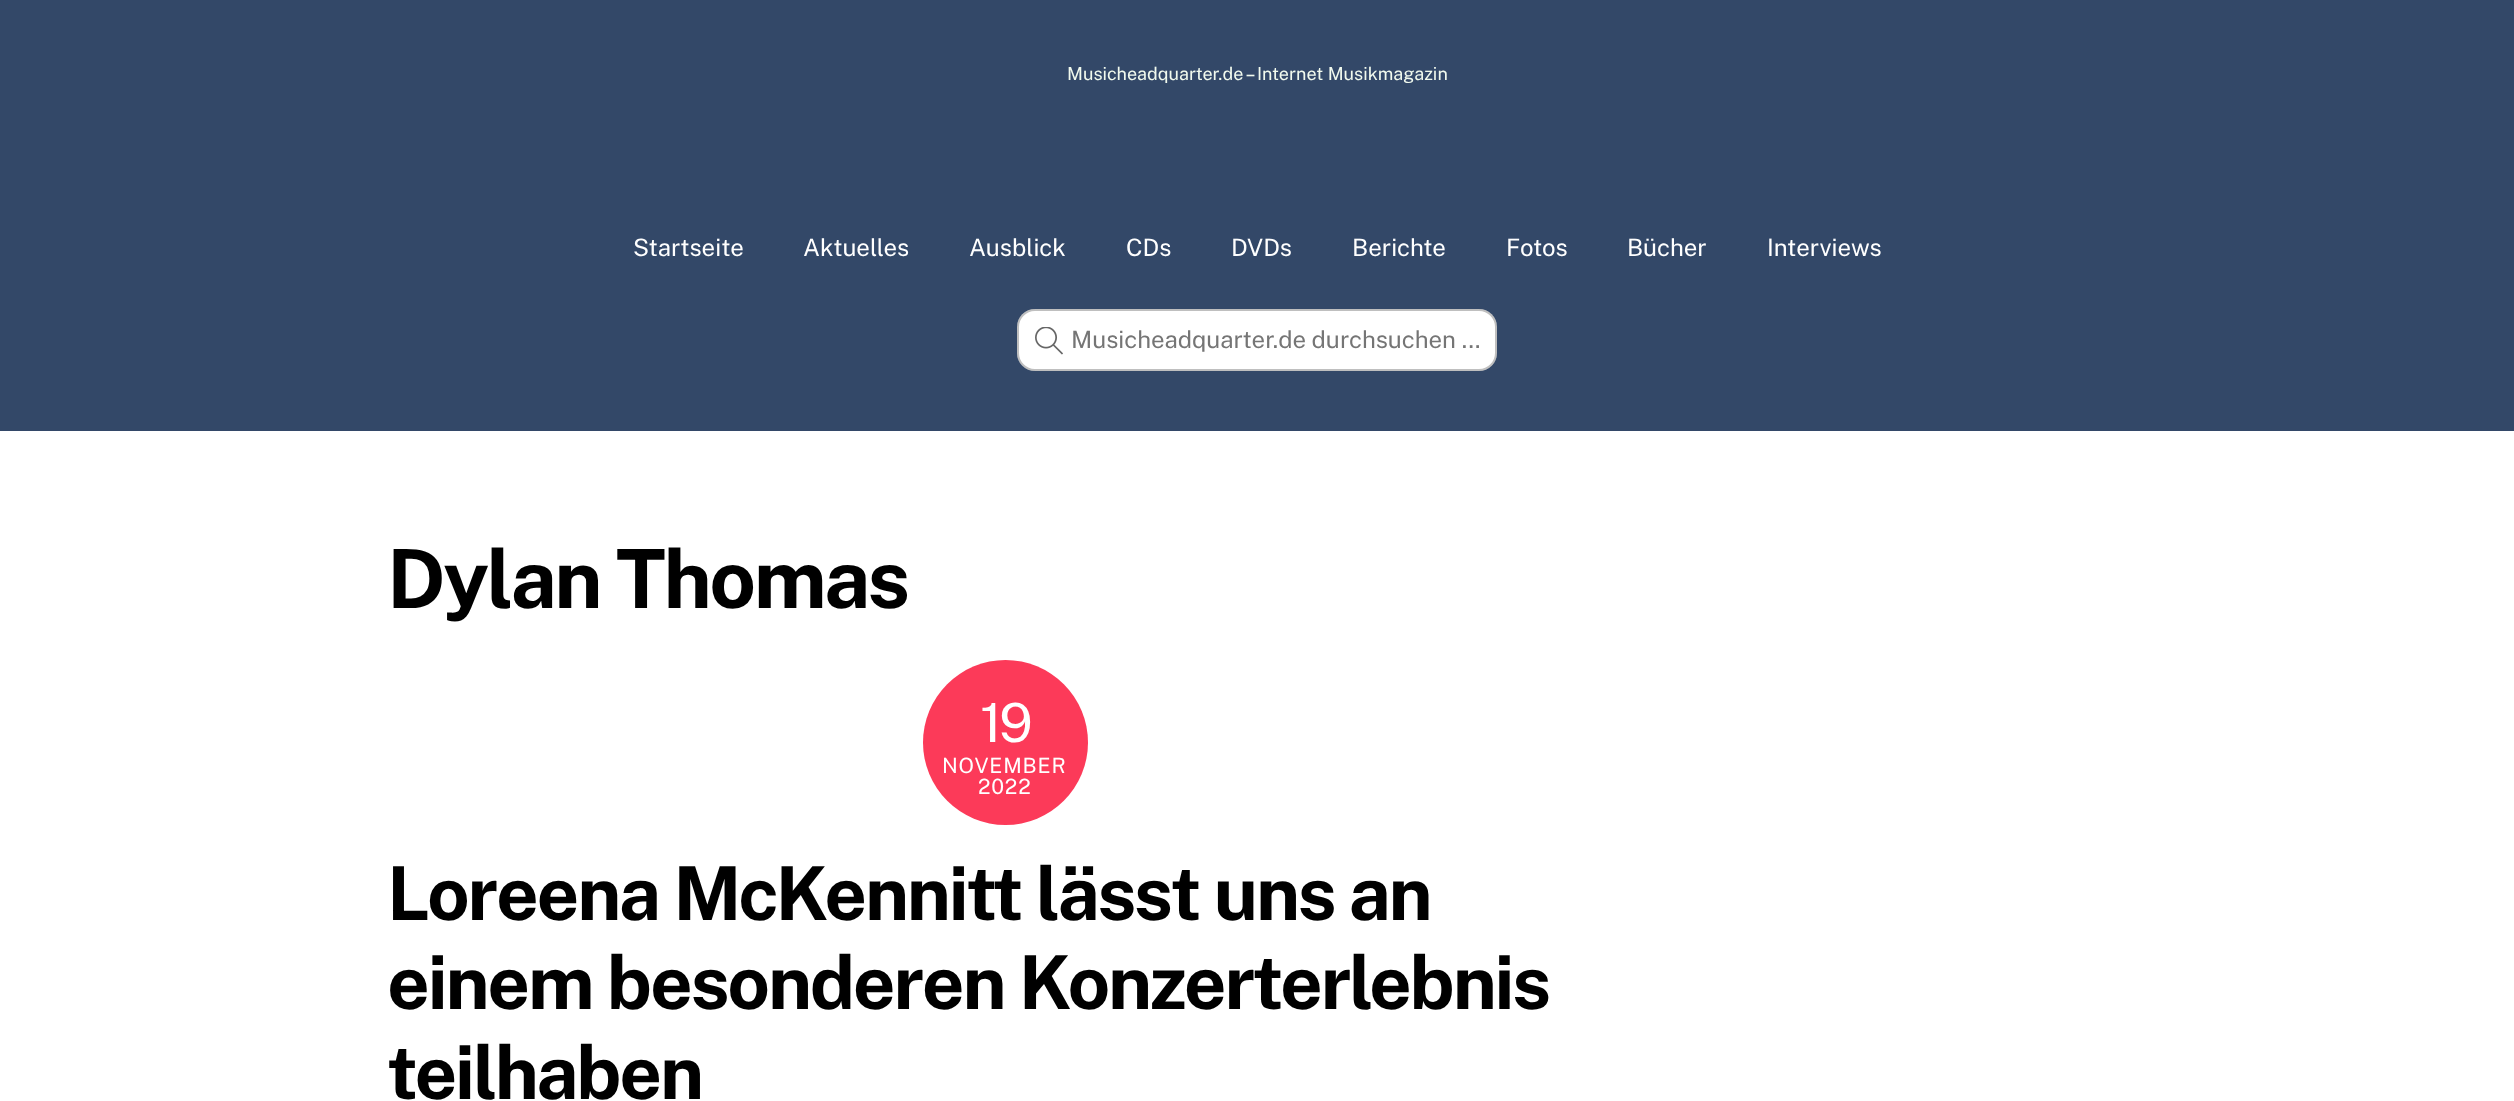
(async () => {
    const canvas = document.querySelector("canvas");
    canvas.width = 2514;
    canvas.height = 1101;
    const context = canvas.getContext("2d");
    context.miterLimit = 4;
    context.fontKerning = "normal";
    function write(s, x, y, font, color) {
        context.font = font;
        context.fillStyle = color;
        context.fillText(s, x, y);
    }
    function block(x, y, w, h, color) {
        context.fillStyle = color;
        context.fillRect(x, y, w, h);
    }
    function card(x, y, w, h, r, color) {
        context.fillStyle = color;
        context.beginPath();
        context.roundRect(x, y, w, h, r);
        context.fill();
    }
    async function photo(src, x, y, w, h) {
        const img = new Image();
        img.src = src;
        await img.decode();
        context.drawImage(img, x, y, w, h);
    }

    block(0, 0, 2514, 1101, "rgb(255, 255, 255)");
    block(0, 0, 2514, 431, "rgb(51, 72, 104)");
    write("Musicheadquarter.de – Internet Musikmagazin", 1067, 80, "18px Public Sans", "rgb(241, 250, 238)");
    write("Startseite", 633, 256, "24px Public Sans", "rgb(255, 255, 255)");
    write("Aktuelles", 803, 256, "24px Public Sans", "rgb(255, 255, 255)");
    write("Ausblick", 969, 256, "24px Public Sans", "rgb(255, 255, 255)");
    write("CDs", 1126, 256, "24px Public Sans", "rgb(255, 255, 255)");
    write("DVDs", 1231, 256, "24px Public Sans", "rgb(255, 255, 255)");
    write("Berichte", 1352, 256, "24px Public Sans", "rgb(255, 255, 255)");
    write("Fotos", 1506, 256, "24px Public Sans", "rgb(255, 255, 255)");
    write("Bücher", 1627, 256, "24px Public Sans", "rgb(255, 255, 255)");
    write("Interviews", 1767, 256, "24px Public Sans", "rgb(255, 255, 255)");
    card(1017, 309, 480, 62, 18, "rgb(255, 255, 255)");
    context.beginPath();
    context.roundRect(1018, 310, 478, 60, 17);
    context.strokeStyle = "rgba(0, 0, 0, 0.25)";
    context.lineWidth = 2;
    context.stroke();
    await photo("media/1.png", 1035, 327, 28, 28);
    write("Musicheadquarter.de durchsuchen ...", 1071, 348, "24px Public Sans", "rgb(117, 117, 117)");
    context.letterSpacing = "-2.5px";
    write("Dylan Thomas", 387, 608, "bold 81.5px Public Sans", "rgb(0, 0, 0)");
    context.fillStyle = "rgb(252, 58, 89)";
    context.beginPath();
    context.arc(1005.5, 742.5, 82.5, 0, Math.PI * 2);
    context.fill();
    context.letterSpacing = "-3px";
    write("19", 980, 742, "54px Public Sans", "rgb(255, 255, 255)");
    context.letterSpacing = "0.75px";
    write("NOVEMBER", 942, 773, "21px Public Sans", "rgb(255, 255, 255)");
    write("2022", 978, 794, "21px Public Sans", "rgb(255, 255, 255)");
    context.letterSpacing = "-2.25px";
    write("Loreena McKennitt lässt uns an", 387, 920, "bold 74.4px Public Sans", "rgb(0, 0, 0)");
    write("einem besonderen Konzerterlebnis", 387, 1009, "bold 74.4px Public Sans", "rgb(0, 0, 0)");
    write("teilhaben", 387, 1099, "bold 74.4px Public Sans", "rgb(0, 0, 0)");
})();
